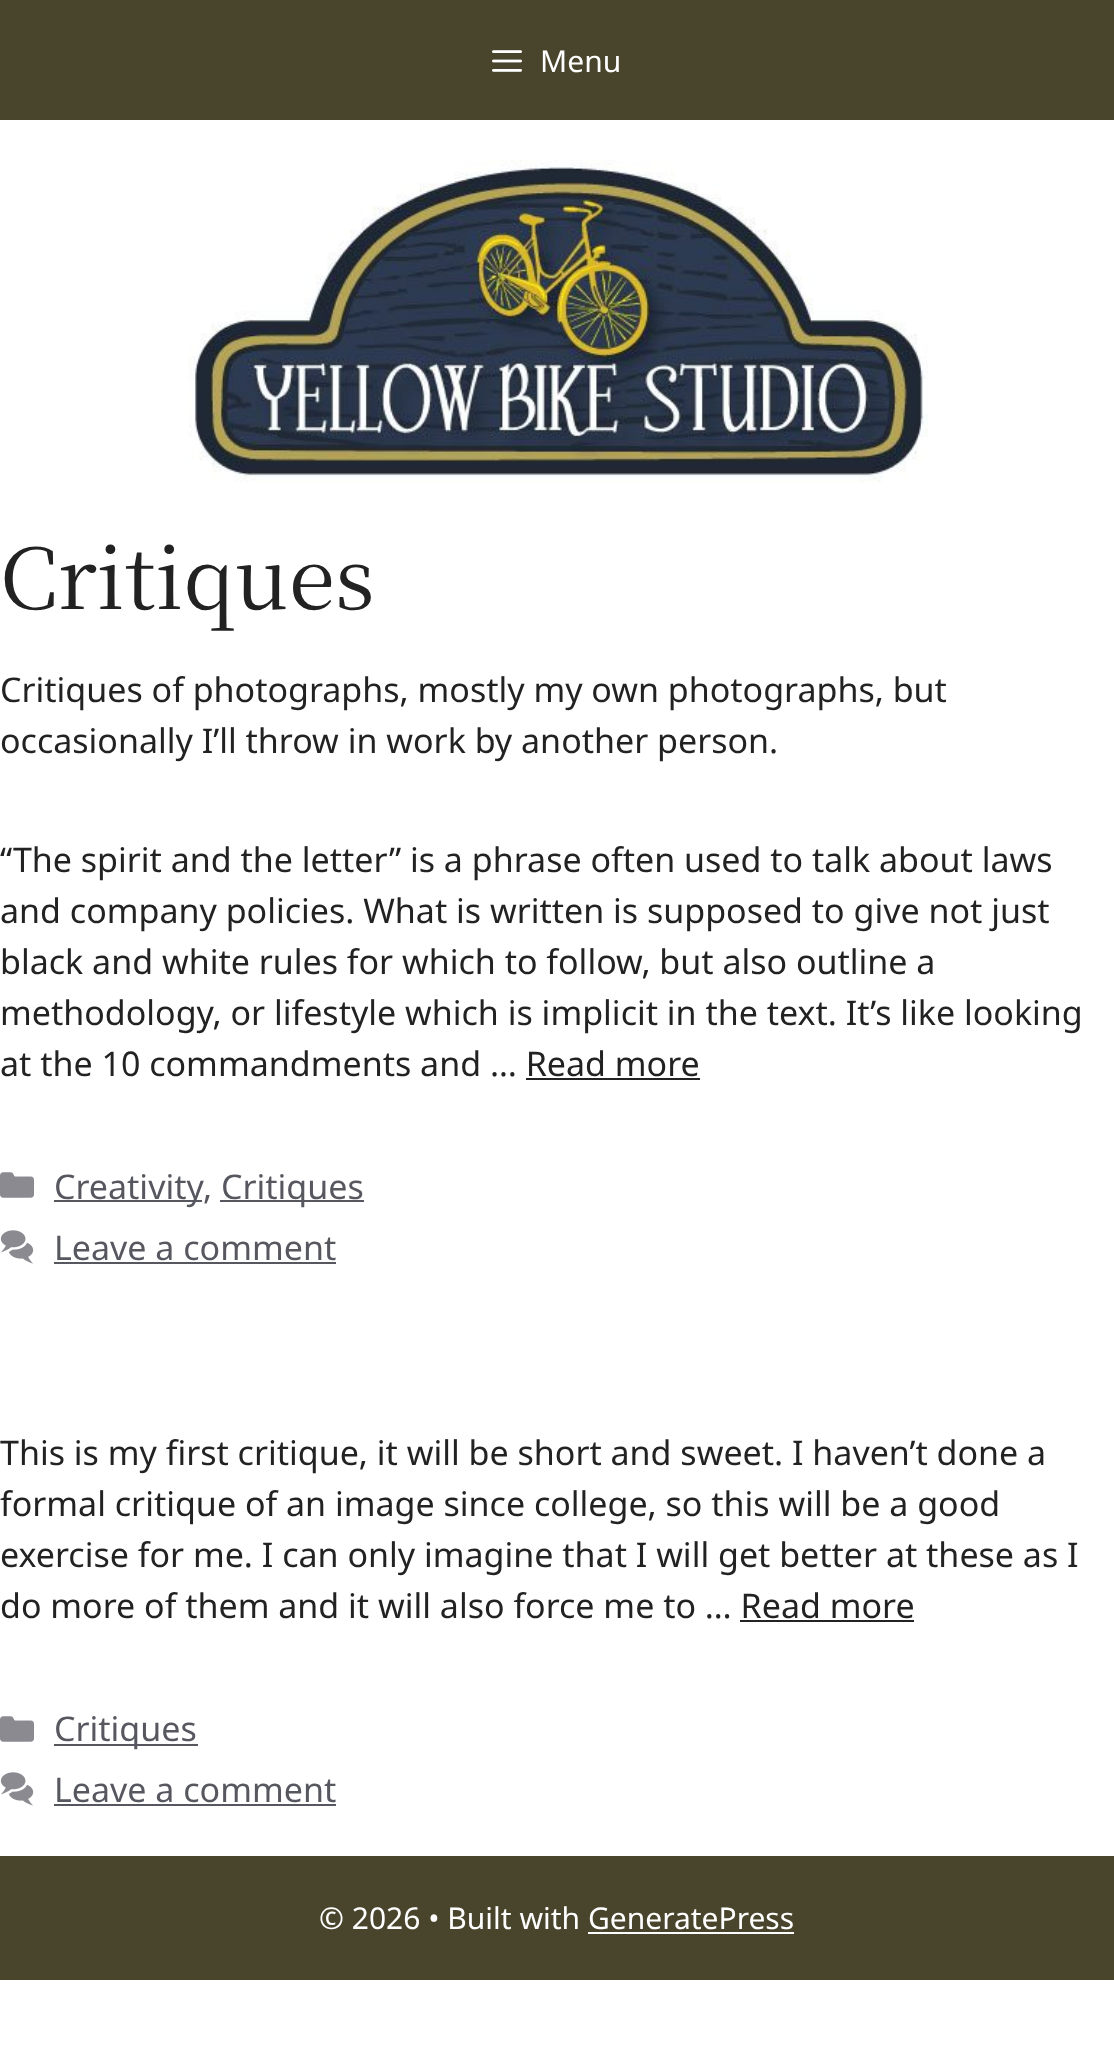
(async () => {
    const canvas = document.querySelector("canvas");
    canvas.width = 1114;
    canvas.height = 2072;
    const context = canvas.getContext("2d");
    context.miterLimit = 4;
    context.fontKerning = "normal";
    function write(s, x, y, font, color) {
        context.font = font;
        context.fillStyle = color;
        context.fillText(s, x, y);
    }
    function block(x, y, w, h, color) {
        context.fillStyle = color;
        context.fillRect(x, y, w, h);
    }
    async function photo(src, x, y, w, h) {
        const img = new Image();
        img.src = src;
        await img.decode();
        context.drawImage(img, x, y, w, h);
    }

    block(0, 0, 1114, 2072, "rgb(255, 255, 255)");
    block(0, 0, 1114, 120, "rgb(73, 69, 44)");
    await photo("media/1.png", 492, 50, 30, 22);
    write("Menu", 540, 72, "30px Noto Sans", "rgb(255, 255, 255)");
    await photo("media/2.png", 188, 160, 740, 322);
    write("Critiques", 0, 609, "84px Noto Serif JP", "rgb(34, 34, 34)");
    write("Critiques of photographs, mostly my own photographs, but", 0, 702, "34px Noto Sans", "rgb(34, 34, 34)");
    write("occasionally I’ll throw in work by another person.", 0, 753, "34px Noto Sans", "rgb(34, 34, 34)");
    write("“The spirit and the letter” is a phrase often used to talk about laws", 0, 872, "34px Noto Sans", "rgb(34, 34, 34)");
    write("and company policies. What is written is supposed to give not just", 0, 923, "34px Noto Sans", "rgb(34, 34, 34)");
    write("black and white rules for which to follow, but also outline a", 0, 974, "34px Noto Sans", "rgb(34, 34, 34)");
    write("methodology, or lifestyle which is implicit in the text. It’s like looking", 0, 1025, "34px Noto Sans", "rgb(34, 34, 34)");
    write("at the 10 commandments and … Read more", 0, 1076, "34px Noto Sans", "rgb(34, 34, 34)");
    block(526, 1078, 174, 2, "rgb(34, 34, 34)");
    await photo("media/3.png", 0, 1172, 34, 26);
    block(54, 1200, 148, 2, "rgb(87, 87, 96)");
    write("Creativity", 54, 1199, "34px Noto Sans", "rgb(87, 87, 96)");
    write(",", 203, 1199, "34px Noto Sans", "rgb(87, 87, 96)");
    block(220, 1200, 144, 2, "rgb(87, 87, 96)");
    write("Critiques", 221, 1199, "34px Noto Sans", "rgb(87, 87, 96)");
    await photo("media/4.png", 0, 1230, 34, 34);
    write("Leave a comment", 54, 1260, "34px Noto Sans", "rgb(87, 87, 96)");
    block(54, 1262, 282, 2, "rgb(87, 87, 96)");
    write("This is my first critique, it will be short and sweet. I haven’t done a", 0, 1465, "34px Noto Sans", "rgb(34, 34, 34)");
    write("formal critique of an image since college, so this will be a good", 0, 1516, "34px Noto Sans", "rgb(34, 34, 34)");
    write("exercise for me. I can only imagine that I will get better at these as I", 0, 1567, "34px Noto Sans", "rgb(34, 34, 34)");
    write("do more of them and it will also force me to … Read more", 0, 1618, "34px Noto Sans", "rgb(34, 34, 34)");
    block(740, 1620, 174, 2, "rgb(34, 34, 34)");
    await photo("media/3.png", 0, 1716, 34, 26);
    block(54, 1744, 144, 2, "rgb(87, 87, 96)");
    write("Critiques", 54, 1741, "34px Noto Sans", "rgb(87, 87, 96)");
    await photo("media/4.png", 0, 1772, 34, 34);
    write("Leave a comment", 54, 1802, "34px Noto Sans", "rgb(87, 87, 96)");
    block(54, 1804, 282, 2, "rgb(87, 87, 96)");
    block(0, 1856, 1114, 124, "rgb(73, 69, 44)");
    write("© 2026 • Built with GeneratePress", 319, 1929, "30px Noto Sans", "rgb(255, 255, 255)");
    block(588, 1932, 206, 2, "rgb(255, 255, 255)");
})();
